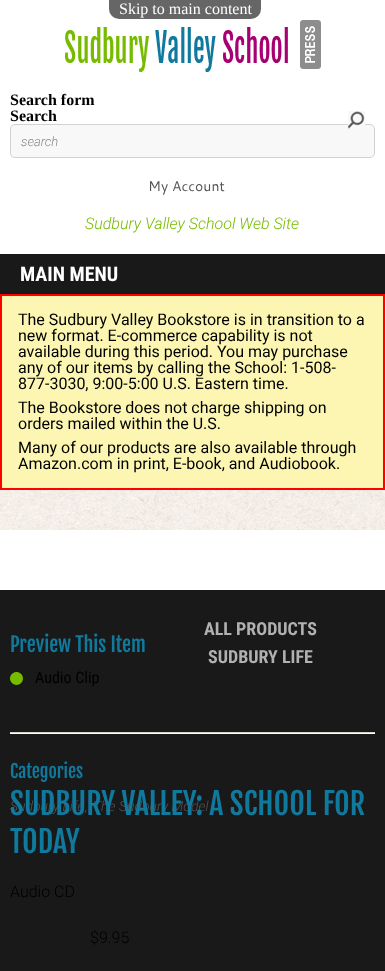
(async () => {
    const canvas = document.querySelector("canvas");
    canvas.width = 385;
    canvas.height = 971;
    const context = canvas.getContext("2d");
    context.miterLimit = 4;
    context.fontKerning = "normal";
    function write(s, x, y, font, color) {
        context.font = font;
        context.fillStyle = color;
        context.fillText(s, x, y);
    }
    function block(x, y, w, h, color) {
        context.fillStyle = color;
        context.fillRect(x, y, w, h);
    }
    async function photo(src, x, y, w, h) {
        const img = new Image();
        img.src = src;
        await img.decode();
        context.drawImage(img, x, y, w, h);
    }

    block(0, 0, 385, 971, "rgb(255, 255, 255)");
    context.fillStyle = "rgb(102, 102, 102)";
    context.beginPath();
    context.roundRect(109, 0, 152, 19, [0, 0, 10, 10]);
    context.fill();
    write("Skip to main content", 119, 14, "16px Liberation Serif", "rgb(255, 255, 255)");
    await photo("media/1.png", 65, 20, 256, 52);
    write("Search form", 10, 105, "bold 16px Liberation Serif", "rgb(0, 0, 0)");
    write("Search", 10, 121, "bold 16px Liberation Serif", "rgb(0, 0, 0)");
    context.fillStyle = "rgb(248, 248, 248)";
    context.beginPath();
    context.roundRect(10.5, 124.5, 364, 33, 4.5);
    context.fill();
    context.strokeStyle = "rgb(210, 210, 210)";
    context.stroke();
    await photo("media/2.png", 348, 111, 17, 18);
    write("search", 21, 146, "italic 300 13px Roboto", "rgb(136, 136, 136)");
    write("My Account", 148, 191, "14px Cantarell", "rgb(84, 84, 84)");
    write("Sudbury Valley School Web Site", 85, 229, "italic 300 16px Roboto", "rgb(119, 187, 0)");
    block(0, 254, 385, 40, "rgb(25, 25, 25)");
    write("MAIN MENU", 20, 281, "bold 20px Roboto Condensed", "rgb(255, 255, 255)");
    await photo("media/3.png", 0, 490, 385, 40);
    context.fillStyle = "rgb(252, 246, 178)";
    context.beginPath();
    context.rect(1, 295, 383, 194);
    context.fill();
    context.strokeStyle = "rgb(255, 0, 0)";
    context.lineWidth = 2;
    context.stroke();
    write("The Sudbury Valley Bookstore is in transition to a", 18, 325, "16px Roboto", "rgb(0, 0, 0)");
    write("new format. E-commerce capability is not", 18, 341, "16px Roboto", "rgb(0, 0, 0)");
    write("available during this period. You may purchase", 18, 357, "16px Roboto", "rgb(0, 0, 0)");
    write("any of our items by calling the School: 1-508-", 18, 373, "16px Roboto", "rgb(0, 0, 0)");
    write("877-3030, 9:00-5:00 U.S. Eastern time.", 18, 389, "16px Roboto", "rgb(0, 0, 0)");
    write("The Bookstore does not charge shipping on", 18, 413, "16px Roboto", "rgb(0, 0, 0)");
    write("orders mailed within the U.S.", 18, 429, "16px Roboto", "rgb(0, 0, 0)");
    write("Many of our products are also available through", 18, 453, "16px Roboto", "rgb(0, 0, 0)");
    write("Amazon.com in print, E-book, and Audiobook.", 18, 469, "16px Roboto", "rgb(0, 0, 0)");
    block(0, 590, 385, 381, "rgb(25, 25, 25)");
    write("Preview This Item", 10, 652, "20px Fjalla One", "rgb(15, 122, 158)");
    await photo("media/4.png", 10, 672, 13, 13);
    write("Audio Clip", 35, 683, "16px Roboto Condensed", "rgb(0, 0, 0)");
    await photo("media/5.png", 10, 732, 365, 2);
    write("Categories", 10, 778, "18px Fjalla One", "rgb(15, 122, 158)");
    write("Sudbury Life", 10, 811, "italic 300 14px Roboto", "rgb(84, 84, 84)");
    write(",", 85, 811, "italic 300 14px Roboto", "rgb(84, 84, 84)");
    write("The Sudbury Model", 93, 811, "italic 300 14px Roboto", "rgb(84, 84, 84)");
    write("SUDBURY VALLEY: A SCHOOL FOR", 10, 815, "30px Fjalla One", "rgb(15, 122, 158)");
    write("TODAY", 10, 853, "30px Fjalla One", "rgb(15, 122, 158)");
    write("Audio CD", 10, 897, "300 16px Roboto", "rgb(0, 0, 0)");
    write("$9.95", 90, 943, "300 16px Roboto", "rgb(0, 0, 0)");
    write("ALL PRODUCTS", 204, 635, "bold 18px Roboto Condensed", "rgb(177, 177, 177)");
    write("SUDBURY LIFE", 208, 663, "bold 18px Roboto Condensed", "rgb(177, 177, 177)");
})();
